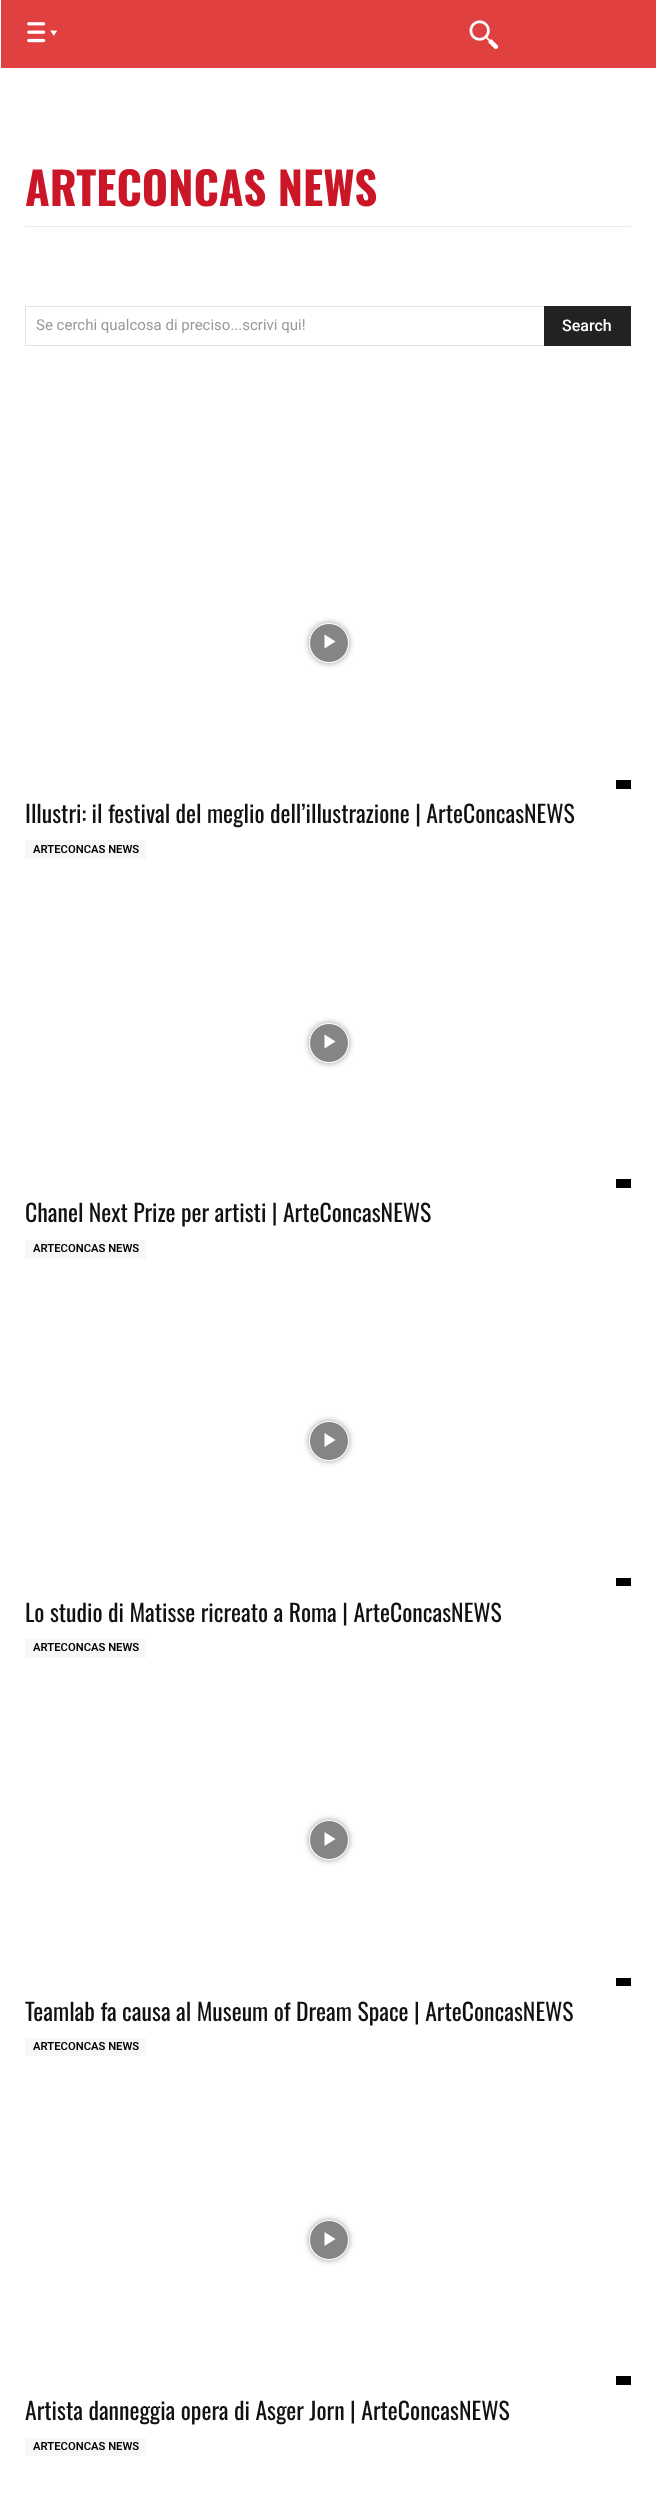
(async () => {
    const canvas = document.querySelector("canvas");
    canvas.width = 656;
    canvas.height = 2495;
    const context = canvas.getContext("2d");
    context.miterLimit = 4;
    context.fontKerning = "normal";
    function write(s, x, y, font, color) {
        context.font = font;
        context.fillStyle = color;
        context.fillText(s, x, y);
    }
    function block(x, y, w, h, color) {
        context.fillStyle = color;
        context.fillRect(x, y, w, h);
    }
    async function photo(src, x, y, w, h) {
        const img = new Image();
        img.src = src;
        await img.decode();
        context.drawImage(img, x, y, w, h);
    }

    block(0, 0, 656, 2495, "rgb(255, 255, 255)");
    block(1, 0, 655, 68, "rgb(224, 64, 64)");
    await photo("media/1.png", 27, 22, 31, 21);
    await photo("media/2.png", 469, 20, 30, 29);
    write("ARTECONCAS NEWS", 25, 206, "bold 45px Oswald", "rgb(203, 22, 40)");
    block(25, 226, 606, 1, "rgb(235, 235, 235)");
    context.strokeStyle = "rgb(225, 225, 225)";
    context.strokeRect(25.5, 306.5, 605, 39);
    write("Se cerchi qualcosa di preciso...scrivi qui!", 36, 330, "15px Roboto", "rgb(153, 153, 153)");
    block(544, 306, 87, 40, "rgb(34, 34, 34)");
    write("Search", 562, 331, "500 16px Roboto", "rgb(255, 255, 255)");
    context.save();
    context.beginPath();
    context.moveTo(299, 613);
    context.lineTo(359, 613);
    context.lineTo(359, 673);
    context.lineTo(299, 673);
    context.closePath();
    context.moveTo(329, 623);
    context.bezierCurveTo(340, 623, 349, 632, 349, 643);
    context.bezierCurveTo(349, 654, 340, 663, 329, 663);
    context.bezierCurveTo(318, 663, 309, 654, 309, 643);
    context.bezierCurveTo(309, 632, 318, 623, 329, 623);
    context.closePath();
    context.clip("evenodd");
    context.fillStyle = "rgba(0, 0, 0, 0.4)";
    context.filter = "blur(3px)";
    context.beginPath();
    context.roundRect(309, 623, 40, 40, 20);
    context.fill();
    context.filter = "none";
    context.restore();
    context.fillStyle = "rgba(0, 0, 0, 0.48)";
    context.beginPath();
    context.arc(329, 643, 19.5, 0, Math.PI * 2);
    context.fill();
    context.strokeStyle = "rgb(255, 255, 255)";
    context.stroke();
    context.fillStyle = "rgb(255, 255, 255)";
    context.beginPath();
    context.moveTo(324.5, 634.5);
    context.lineTo(324.5, 648.5);
    context.lineTo(335.5, 641.5);
    context.closePath();
    context.fill();
    block(616, 780, 15, 9, "rgb(0, 0, 0)");
    write("Illustri: il festival del meglio dell’illustrazione | ArteConcasNEWS", 25, 823, "23.75px Oswald", "rgb(17, 17, 17)");
    block(25, 840, 121, 19, "rgb(247, 247, 247)");
    write("ARTECONCAS NEWS", 33, 853, "600 11.25px Roboto", "rgb(0, 0, 0)");
    context.save();
    context.beginPath();
    context.moveTo(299, 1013);
    context.lineTo(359, 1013);
    context.lineTo(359, 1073);
    context.lineTo(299, 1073);
    context.closePath();
    context.moveTo(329, 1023);
    context.bezierCurveTo(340, 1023, 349, 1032, 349, 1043);
    context.bezierCurveTo(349, 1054, 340, 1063, 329, 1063);
    context.bezierCurveTo(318, 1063, 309, 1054, 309, 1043);
    context.bezierCurveTo(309, 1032, 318, 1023, 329, 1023);
    context.closePath();
    context.clip("evenodd");
    context.fillStyle = "rgba(0, 0, 0, 0.4)";
    context.filter = "blur(3px)";
    context.beginPath();
    context.roundRect(309, 1023, 40, 40, 20);
    context.fill();
    context.filter = "none";
    context.restore();
    context.fillStyle = "rgba(0, 0, 0, 0.48)";
    context.beginPath();
    context.arc(329, 1043, 19.5, 0, Math.PI * 2);
    context.fill();
    context.stroke();
    context.fillStyle = "rgb(255, 255, 255)";
    context.beginPath();
    context.moveTo(324.5, 1034.5);
    context.lineTo(324.5, 1048.5);
    context.lineTo(335.5, 1041.5);
    context.closePath();
    context.fill();
    block(616, 1179, 15, 9, "rgb(0, 0, 0)");
    write("Chanel Next Prize per artisti | ArteConcasNEWS", 25, 1222, "23.75px Oswald", "rgb(17, 17, 17)");
    block(25, 1240, 121, 19, "rgb(247, 247, 247)");
    write("ARTECONCAS NEWS", 33, 1252, "600 11.25px Roboto", "rgb(0, 0, 0)");
    context.save();
    context.beginPath();
    context.moveTo(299, 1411);
    context.lineTo(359, 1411);
    context.lineTo(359, 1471);
    context.lineTo(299, 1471);
    context.closePath();
    context.moveTo(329, 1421);
    context.bezierCurveTo(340, 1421, 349, 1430, 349, 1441);
    context.bezierCurveTo(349, 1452, 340, 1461, 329, 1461);
    context.bezierCurveTo(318, 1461, 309, 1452, 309, 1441);
    context.bezierCurveTo(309, 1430, 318, 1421, 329, 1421);
    context.closePath();
    context.clip("evenodd");
    context.fillStyle = "rgba(0, 0, 0, 0.4)";
    context.filter = "blur(3px)";
    context.beginPath();
    context.roundRect(309, 1421, 40, 40, 20);
    context.fill();
    context.filter = "none";
    context.restore();
    context.fillStyle = "rgba(0, 0, 0, 0.48)";
    context.beginPath();
    context.arc(329, 1441, 19.5, 0, Math.PI * 2);
    context.fill();
    context.stroke();
    context.fillStyle = "rgb(255, 255, 255)";
    context.beginPath();
    context.moveTo(324.5, 1433);
    context.lineTo(324.5, 1447);
    context.lineTo(335.5, 1440);
    context.closePath();
    context.fill();
    block(616, 1578, 15, 8, "rgb(0, 0, 0)");
    write("Lo studio di Matisse ricreato a Roma | ArteConcasNEWS", 25, 1622, "23.75px Oswald", "rgb(17, 17, 17)");
    block(25, 1639, 121, 19, "rgb(247, 247, 247)");
    write("ARTECONCAS NEWS", 33, 1651, "600 11.25px Roboto", "rgb(0, 0, 0)");
    context.save();
    context.beginPath();
    context.moveTo(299, 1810);
    context.lineTo(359, 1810);
    context.lineTo(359, 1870);
    context.lineTo(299, 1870);
    context.closePath();
    context.moveTo(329, 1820);
    context.bezierCurveTo(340, 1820, 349, 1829, 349, 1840);
    context.bezierCurveTo(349, 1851, 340, 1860, 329, 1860);
    context.bezierCurveTo(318, 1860, 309, 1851, 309, 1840);
    context.bezierCurveTo(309, 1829, 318, 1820, 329, 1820);
    context.closePath();
    context.clip("evenodd");
    context.fillStyle = "rgba(0, 0, 0, 0.4)";
    context.filter = "blur(3px)";
    context.beginPath();
    context.roundRect(309, 1820, 40, 40, 20);
    context.fill();
    context.filter = "none";
    context.restore();
    context.fillStyle = "rgba(0, 0, 0, 0.48)";
    context.beginPath();
    context.arc(329, 1840, 19.5, 0, Math.PI * 2);
    context.fill();
    context.stroke();
    context.fillStyle = "rgb(255, 255, 255)";
    context.beginPath();
    context.moveTo(324.5, 1832);
    context.lineTo(324.5, 1846);
    context.lineTo(335.5, 1839);
    context.closePath();
    context.fill();
    block(616, 1978, 15, 8, "rgb(0, 0, 0)");
    write("Teamlab fa causa al Museum of Dream Space | ArteConcasNEWS", 25, 2021, "23.75px Oswald", "rgb(17, 17, 17)");
    block(25, 2038, 121, 18, "rgb(247, 247, 247)");
    write("ARTECONCAS NEWS", 33, 2050, "600 11.25px Roboto", "rgb(0, 0, 0)");
    context.save();
    context.beginPath();
    context.moveTo(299, 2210);
    context.lineTo(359, 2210);
    context.lineTo(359, 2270);
    context.lineTo(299, 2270);
    context.closePath();
    context.moveTo(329, 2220);
    context.bezierCurveTo(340, 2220, 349, 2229, 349, 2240);
    context.bezierCurveTo(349, 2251, 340, 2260, 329, 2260);
    context.bezierCurveTo(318, 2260, 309, 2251, 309, 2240);
    context.bezierCurveTo(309, 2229, 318, 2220, 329, 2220);
    context.closePath();
    context.clip("evenodd");
    context.fillStyle = "rgba(0, 0, 0, 0.4)";
    context.filter = "blur(3px)";
    context.beginPath();
    context.roundRect(309, 2220, 40, 40, 20);
    context.fill();
    context.filter = "none";
    context.restore();
    context.fillStyle = "rgba(0, 0, 0, 0.48)";
    context.beginPath();
    context.arc(329, 2240, 19.5, 0, Math.PI * 2);
    context.fill();
    context.stroke();
    context.fillStyle = "rgb(255, 255, 255)";
    context.beginPath();
    context.moveTo(324.5, 2232);
    context.lineTo(324.5, 2246);
    context.lineTo(335.5, 2239);
    context.closePath();
    context.fill();
    block(616, 2376, 15, 9, "rgb(0, 0, 0)");
    write("Artista danneggia opera di Asger Jorn | ArteConcasNEWS", 25, 2420, "23.75px Oswald", "rgb(17, 17, 17)");
    block(25, 2438, 121, 18, "rgb(247, 247, 247)");
    write("ARTECONCAS NEWS", 33, 2450, "600 11.25px Roboto", "rgb(0, 0, 0)");
})();
